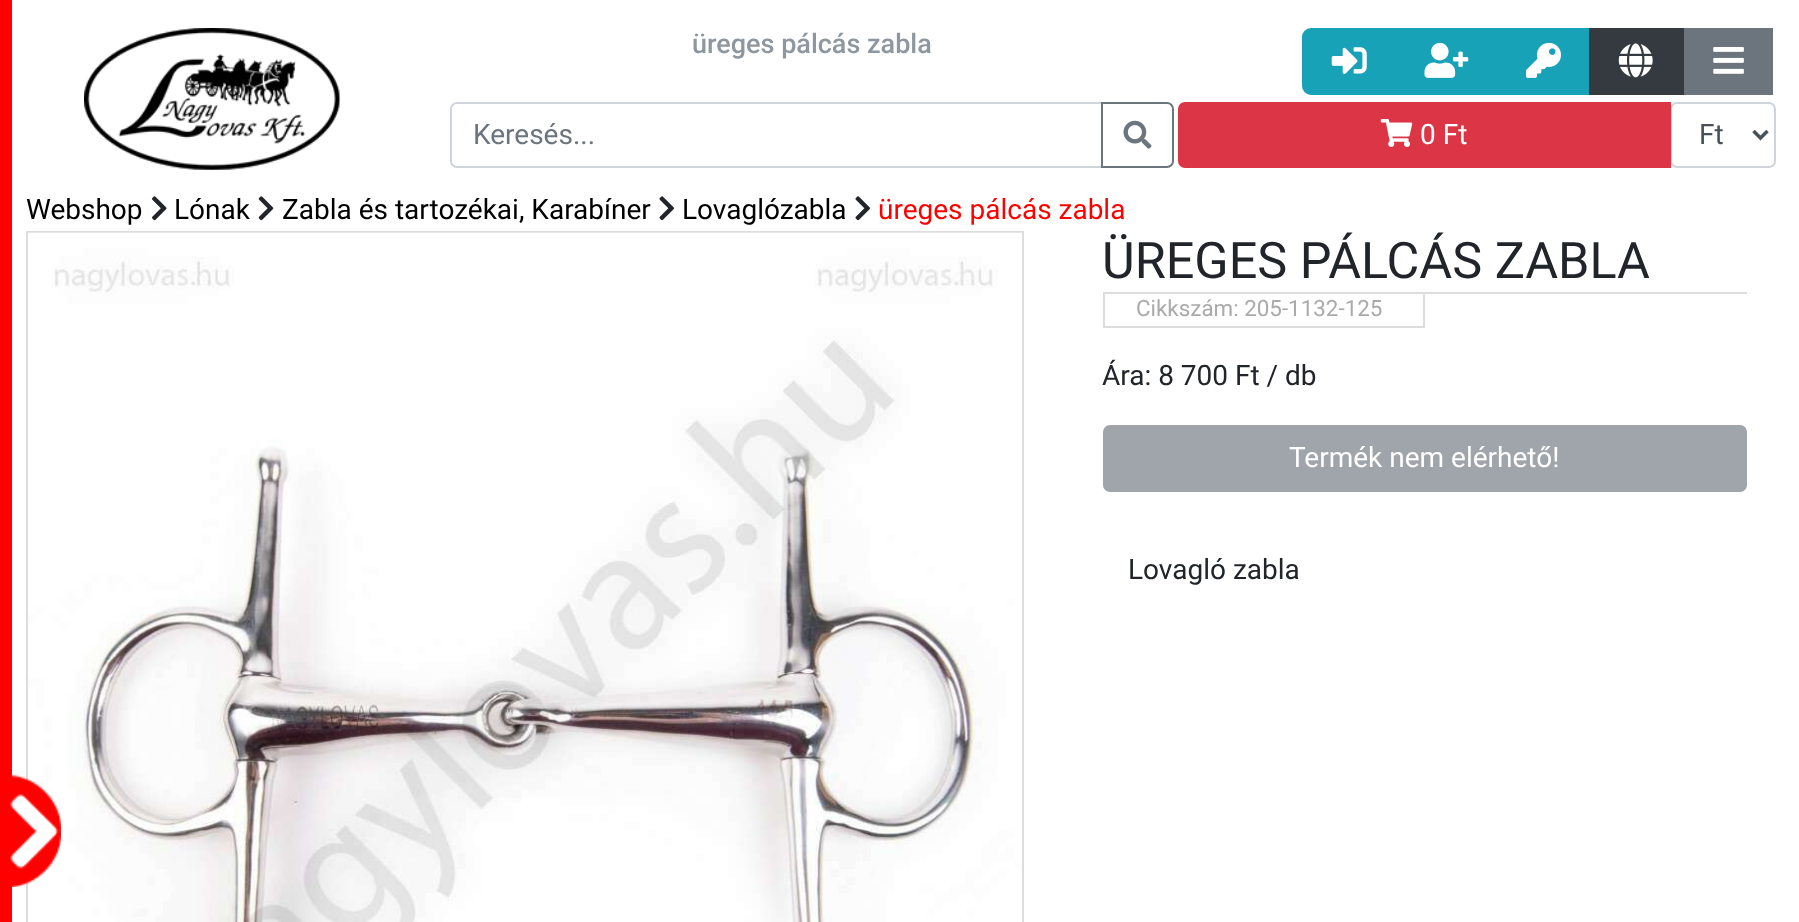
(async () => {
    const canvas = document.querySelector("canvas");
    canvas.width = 1799;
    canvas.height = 922;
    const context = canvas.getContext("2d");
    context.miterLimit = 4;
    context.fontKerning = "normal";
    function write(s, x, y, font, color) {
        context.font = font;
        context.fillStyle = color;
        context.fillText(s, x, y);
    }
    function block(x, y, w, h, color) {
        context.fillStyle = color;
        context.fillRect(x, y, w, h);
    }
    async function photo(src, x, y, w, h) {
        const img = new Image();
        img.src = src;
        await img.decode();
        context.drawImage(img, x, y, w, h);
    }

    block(0, 0, 1799, 922, "rgb(255, 255, 255)");
    await photo("media/1.png", 84, 28, 256, 142);
    write("üreges pálcás zabla", 692, 53, "500 27px Roboto", "rgb(142, 151, 159)");
    context.beginPath();
    context.roundRect(451, 103, 651, 64, [6, 0, 0, 6]);
    context.strokeStyle = "rgb(206, 212, 218)";
    context.lineWidth = 2;
    context.stroke();
    write("Keresés...", 473, 144, "28px Roboto", "rgb(108, 117, 125)");
    context.fillStyle = "rgb(255, 255, 255)";
    context.beginPath();
    context.roundRect(1102, 103, 71, 64, [0, 6, 6, 0]);
    context.fill();
    context.strokeStyle = "rgb(108, 117, 125)";
    context.stroke();
    await photo("media/2.png", 1123, 120, 29, 29);
    context.fillStyle = "rgb(23, 162, 184)";
    context.beginPath();
    context.roundRect(1303, 29, 93, 65, [8, 0, 0, 8]);
    context.fill();
    context.strokeStyle = "rgb(23, 162, 184)";
    context.stroke();
    await photo("media/3.png", 1331, 47, 36, 27);
    block(1397, 28, 192, 67, "rgb(23, 162, 184)");
    await photo("media/4.png", 1424, 42, 45, 36);
    block(1589, 28, 95, 67, "rgb(52, 58, 64)");
    await photo("media/5.png", 1618, 43, 35, 35);
    block(1684, 28, 89, 67, "rgb(108, 117, 125)");
    await photo("media/6.png", 1713, 47, 31, 27);
    await photo("media/7.png", 1526, 42, 35, 36);
    context.beginPath();
    context.roundRect(1671, 103, 104, 64, 6);
    context.strokeStyle = "rgb(206, 212, 218)";
    context.stroke();
    context.fillStyle = "rgb(220, 53, 69)";
    context.beginPath();
    context.roundRect(1179, 103, 491, 64, [6, 0, 0, 6]);
    context.fill();
    context.strokeStyle = "rgb(220, 53, 69)";
    context.stroke();
    await photo("media/8.png", 1380, 119, 33, 28);
    write("0 Ft", 1420, 144, "28px Roboto", "rgb(255, 255, 255)");
    context.beginPath();
    context.moveTo(1753.5, 131);
    context.lineTo(1760.5, 138);
    context.lineTo(1767.5, 131);
    context.strokeStyle = "rgb(73, 80, 87)";
    context.lineWidth = 3.5;
    context.stroke();
    write("Ft", 1699, 144, "28px Roboto", "rgb(73, 80, 87)");
    block(0, 0, 12, 922, "rgb(255, 0, 0)");
    context.strokeStyle = "rgb(221, 221, 221)";
    context.lineWidth = 2;
    context.strokeRect(27, 232, 996, 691);
    await photo("media/13.png", 28, 232, 994, 690);
    await photo("media/9.png", 10, 774, 51, 113);
    write("Webshop", 26, 219, "28px Roboto", "rgb(0, 0, 0)");
    await photo("media/10.png", 152, 196, 15, 25);
    write("Lónak", 174, 219, "28px Roboto", "rgb(0, 0, 0)");
    await photo("media/11.png", 258, 196, 16, 25);
    write("Zabla és tartozékai, Karabíner", 282, 219, "28px Roboto", "rgb(0, 0, 0)");
    await photo("media/12.png", 659, 196, 15, 25);
    write("Lovaglózabla", 682, 219, "28px Roboto", "rgb(0, 0, 0)");
    await photo("media/12.png", 855, 196, 15, 25);
    write("üreges pálcás zabla", 878, 219, "28px Roboto", "rgb(255, 0, 0)");
    block(1103, 292, 644, 2, "rgb(221, 221, 221)");
    write("ÜREGES PÁLCÁS ZABLA", 1102, 278, "50.4px Roboto", "rgb(33, 37, 41)");
    block(1423, 292, 2, 35, "rgb(221, 221, 221)");
    block(1103, 326, 322, 2, "rgb(221, 221, 221)");
    block(1103, 292, 2, 35, "rgb(221, 221, 221)");
    write("Cikkszám: 205-1132-125", 1136, 316, "22.4px Roboto", "rgb(170, 170, 170)");
    write("Ára: 8 700 Ft / db", 1102, 385, "28px Roboto", "rgb(33, 37, 41)");
    context.fillStyle = "rgb(159, 165, 171)";
    context.beginPath();
    context.roundRect(1104, 426, 642, 65, 6);
    context.fill();
    context.strokeStyle = "rgb(159, 165, 171)";
    context.stroke();
    write("Termék nem elérhető!", 1289, 467, "28px Roboto", "rgb(255, 255, 255)");
    write("Lovagló zabla", 1128, 579, "28px Roboto", "rgb(33, 37, 41)");
})();
